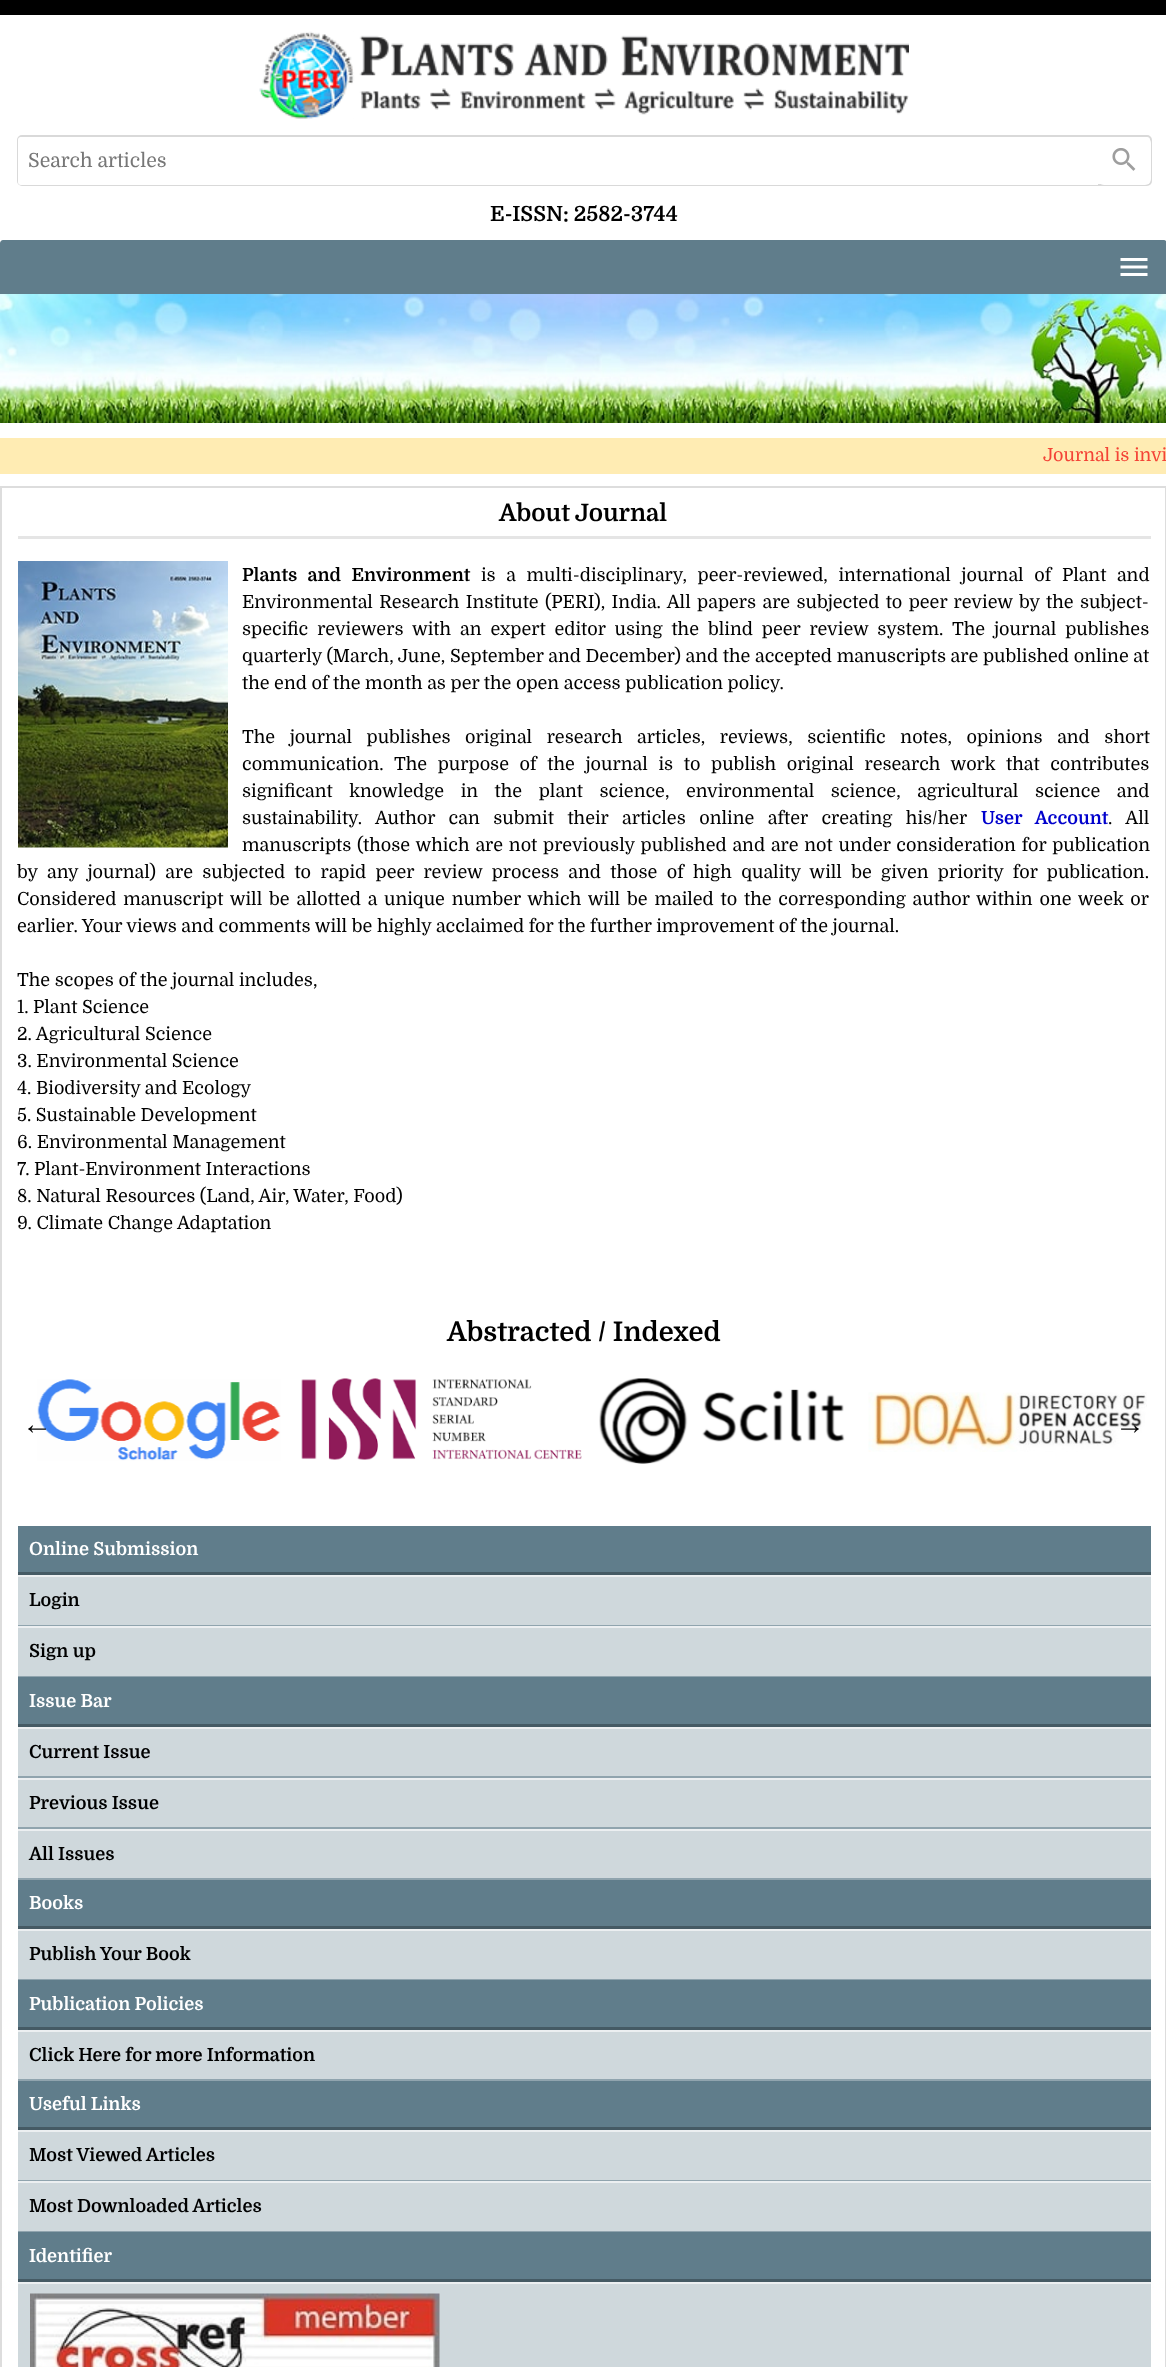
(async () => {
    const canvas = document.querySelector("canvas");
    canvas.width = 1166;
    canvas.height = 2367;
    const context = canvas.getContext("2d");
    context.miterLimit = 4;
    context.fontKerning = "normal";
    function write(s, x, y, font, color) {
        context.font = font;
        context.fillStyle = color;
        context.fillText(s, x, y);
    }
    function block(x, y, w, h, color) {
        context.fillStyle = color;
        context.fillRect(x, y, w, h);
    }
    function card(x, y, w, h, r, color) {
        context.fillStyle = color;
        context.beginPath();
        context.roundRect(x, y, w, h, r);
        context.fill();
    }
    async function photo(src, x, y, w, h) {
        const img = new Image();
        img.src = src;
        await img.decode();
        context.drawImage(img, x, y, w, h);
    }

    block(0, 0, 1166, 2367, "rgb(255, 255, 255)");
    block(0, 0, 1166, 15, "rgb(0, 0, 0)");
    await photo("media/1.png", 259, 31, 650, 88);
    context.beginPath();
    context.roundRect(18, 136, 1133, 49, 4);
    context.strokeStyle = "rgb(217, 217, 217)";
    context.lineWidth = 2;
    context.stroke();
    context.fillStyle = "rgb(255, 255, 255)";
    context.beginPath();
    context.roundRect(18, 137, 1080, 48, [3, 0, 0, 3]);
    context.fill();
    write("Search articles", 28, 167, "19.5px Domine", "rgb(119, 119, 119)");
    card(1098, 137, 53, 48, 6, "rgb(255, 255, 255)");
    await photo("media/2.png", 1112, 148, 24, 23);
    write("E-ISSN: 2582-3744", 490, 221, "bold 21px Domine", "rgb(0, 0, 0)");
    context.fillStyle = "rgb(96, 125, 139)";
    context.beginPath();
    context.moveTo(3, 240);
    context.lineTo(1164, 240);
    context.bezierCurveTo(1165.5, 240, 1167, 241.5, 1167, 243);
    context.lineTo(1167, 294);
    context.lineTo(0, 294);
    context.lineTo(0, 243);
    context.bezierCurveTo(0, 241.5, 1.5, 240, 3, 240);
    context.closePath();
    context.fill();
    await photo("media/3.png", 1120, 258, 28, 18);
    await photo("media/4.png", 0, 294, 1166, 129);
    block(0, 438, 1166, 36, "rgb(255, 236, 179)");
    write("Journal is invi", 1043, 461, "18px Domine", "rgb(244, 67, 54)");
    context.strokeStyle = "rgb(221, 221, 221)";
    context.strokeRect(1, 487, 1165, 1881);
    block(18, 536, 1133, 3, "rgb(229, 229, 229)");
    write("About Journal", 499, 521, "bold 24px Domine", "rgb(0, 0, 0)");
    await photo("media/5.png", 18, 561, 210, 287);
    context.wordSpacing = "6.1px";
    write("Plants and Environment", 242, 581, "bold 18px Domine", "rgb(0, 0, 0)");
    write("is a multi-disciplinary, peer-reviewed, international journal of Plant and", 481, 581, "18px Domine", "rgb(0, 0, 0)");
    context.wordSpacing = "1.8px";
    write("Environmental Research Institute (PERI), India. All papers are subjected to peer review by the subject-", 242, 608, "18px Domine", "rgb(0, 0, 0)");
    context.wordSpacing = "4.4px";
    write("specific reviewers with an expert editor using the blind peer review system. The journal publishes", 242, 635, "18px Domine", "rgb(0, 0, 0)");
    context.wordSpacing = "0.1px";
    write("quarterly (March, June, September and December) and the accepted manuscripts are published online at", 242, 662, "18px Domine", "rgb(0, 0, 0)");
    context.wordSpacing = "0px";
    write("the end of the month as per the open access publication policy.", 242, 689, "18px Domine", "rgb(0, 0, 0)");
    context.wordSpacing = "10px";
    write("The journal publishes original research articles, reviews, scientific notes, opinions and short", 242, 743, "18px Domine", "rgb(0, 0, 0)");
    context.wordSpacing = "6.1px";
    write("communication. The purpose of the journal is to publish original research work that contributes", 242, 770, "18px Domine", "rgb(0, 0, 0)");
    context.wordSpacing = "12px";
    write("significant knowledge in the plant science, environmental science, agricultural science and", 242, 797, "18px Domine", "rgb(0, 0, 0)");
    context.wordSpacing = "9px";
    write("sustainability. Author can submit their articles online after creating his/her", 242, 824, "18px Domine", "rgb(0, 0, 0)");
    write("User Account", 981, 824, "bold 18px Domine", "rgb(0, 0, 204)");
    write(". All", 1108, 824, "18px Domine", "rgb(0, 0, 0)");
    context.wordSpacing = "1.25px";
    write("manuscripts (those which are not previously published and are not under consideration for publication", 242, 851, "18px Domine", "rgb(0, 0, 0)");
    context.wordSpacing = "4.75px";
    write("by any journal) are subjected to rapid peer review process and those of high quality will be given priority for publication.", 17, 878, "18px Domine", "rgb(0, 0, 0)");
    context.wordSpacing = "2.25px";
    write("Considered manuscript will be allotted a unique number which will be mailed to the corresponding author within one week or", 17, 905, "18px Domine", "rgb(0, 0, 0)");
    context.wordSpacing = "0px";
    write("earlier. Your views and comments will be highly acclaimed for the further improvement of the journal.", 17, 932, "18px Domine", "rgb(0, 0, 0)");
    write("The scopes of the journal includes,", 17, 986, "18px Domine", "rgb(0, 0, 0)");
    write("1. Plant Science", 17, 1013, "18px Domine", "rgb(0, 0, 0)");
    write("2. Agricultural Science", 17, 1040, "18px Domine", "rgb(0, 0, 0)");
    write("3. Environmental Science", 17, 1067, "18px Domine", "rgb(0, 0, 0)");
    write("4. Biodiversity and Ecology", 17, 1094, "18px Domine", "rgb(0, 0, 0)");
    write("5. Sustainable Development", 17, 1121, "18px Domine", "rgb(0, 0, 0)");
    write("6. Environmental Management", 17, 1148, "18px Domine", "rgb(0, 0, 0)");
    write("7. Plant-Environment Interactions", 17, 1175, "18px Domine", "rgb(0, 0, 0)");
    write("8. Natural Resources (Land, Air, Water, Food)", 17, 1202, "18px Domine", "rgb(0, 0, 0)");
    write("9. Climate Change Adaptation", 17, 1229, "18px Domine", "rgb(0, 0, 0)");
    write("Abstracted / Indexed", 447, 1341, "bold 27px Domine", "rgb(0, 0, 0)");
    await photo("media/6.png", 37, 1379, 244, 82);
    write("←", 22, 1434, "30px Liberation Serif", "rgb(0, 0, 0)");
    await photo("media/7.png", 301, 1378, 281, 82);
    await photo("media/8.png", 599, 1378, 246, 86);
    await photo("media/9.png", 868, 1392, 279, 60);
    write("→", 1115, 1434, "30px Liberation Serif", "rgb(0, 0, 0)");
    block(18, 1526, 1133, 46, "rgb(96, 125, 139)");
    block(18, 1572, 1133, 3, "rgb(69, 90, 100)");
    write("Online Submission", 29, 1555, "bold 18px Domine", "rgb(255, 255, 255)");
    block(18, 1577, 1133, 99, "rgb(207, 216, 220)");
    block(18, 1575, 1133, 2, "rgb(236, 239, 241)");
    block(18, 1625, 1133, 1, "rgb(144, 164, 174)");
    write("Login", 29, 1606, "bold 18px Domine", "rgb(0, 0, 0)");
    block(18, 1626, 1133, 2, "rgb(236, 239, 241)");
    block(18, 1676, 1133, 1, "rgb(144, 164, 174)");
    write("Sign up", 29, 1657, "bold 18px Domine", "rgb(0, 0, 0)");
    block(18, 1677, 1133, 47, "rgb(96, 125, 139)");
    block(18, 1724, 1133, 3, "rgb(69, 90, 100)");
    write("Issue Bar", 29, 1707, "bold 18px Domine", "rgb(255, 255, 255)");
    block(18, 1729, 1133, 149, "rgb(207, 216, 220)");
    block(18, 1727, 1133, 2, "rgb(236, 239, 241)");
    block(18, 1776, 1133, 2, "rgb(144, 164, 174)");
    write("Current Issue", 29, 1758, "bold 18px Domine", "rgb(0, 0, 0)");
    block(18, 1778, 1133, 2, "rgb(236, 239, 241)");
    block(18, 1827, 1133, 2, "rgb(144, 164, 174)");
    write("Previous Issue", 29, 1809, "bold 18px Domine", "rgb(0, 0, 0)");
    block(18, 1829, 1133, 2, "rgb(236, 239, 241)");
    block(18, 1878, 1133, 2, "rgb(144, 164, 174)");
    write("All Issues", 29, 1860, "bold 18px Domine", "rgb(0, 0, 0)");
    block(18, 1880, 1133, 46, "rgb(96, 125, 139)");
    block(18, 1926, 1133, 3, "rgb(69, 90, 100)");
    write("Books", 29, 1909, "bold 18px Domine", "rgb(255, 255, 255)");
    block(18, 1931, 1133, 48, "rgb(207, 216, 220)");
    block(18, 1929, 1133, 2, "rgb(236, 239, 241)");
    block(18, 1979, 1133, 1, "rgb(144, 164, 174)");
    write("Publish Your Book", 29, 1960, "bold 18px Domine", "rgb(0, 0, 0)");
    block(18, 1980, 1133, 47, "rgb(96, 125, 139)");
    block(18, 2027, 1133, 3, "rgb(69, 90, 100)");
    write("Publication Policies", 29, 2010, "bold 18px Domine", "rgb(255, 255, 255)");
    block(18, 2032, 1133, 47, "rgb(207, 216, 220)");
    block(18, 2030, 1133, 2, "rgb(236, 239, 241)");
    block(18, 2079, 1133, 2, "rgb(144, 164, 174)");
    write("Click Here for more Information", 29, 2061, "bold 18px Domine", "rgb(0, 0, 0)");
    block(18, 2081, 1133, 46, "rgb(96, 125, 139)");
    block(18, 2127, 1133, 3, "rgb(69, 90, 100)");
    write("Useful Links", 29, 2110, "bold 18px Domine", "rgb(255, 255, 255)");
    block(18, 2132, 1133, 99, "rgb(207, 216, 220)");
    block(18, 2130, 1133, 2, "rgb(236, 239, 241)");
    block(18, 2180, 1133, 1, "rgb(144, 164, 174)");
    write("Most Viewed Articles", 29, 2161, "bold 18px Domine", "rgb(0, 0, 0)");
    block(18, 2181, 1133, 2, "rgb(236, 239, 241)");
    block(18, 2231, 1133, 1, "rgb(144, 164, 174)");
    write("Most Downloaded Articles", 29, 2212, "bold 18px Domine", "rgb(0, 0, 0)");
    block(18, 2232, 1133, 47, "rgb(96, 125, 139)");
    block(18, 2279, 1133, 3, "rgb(69, 90, 100)");
    write("Identifier", 29, 2262, "bold 18px Domine", "rgb(255, 255, 255)");
    block(18, 2284, 1133, 83, "rgb(207, 216, 220)");
    block(18, 2282, 1133, 2, "rgb(236, 239, 241)");
    await photo("media/10.png", 30, 2293, 410, 74);
})();
